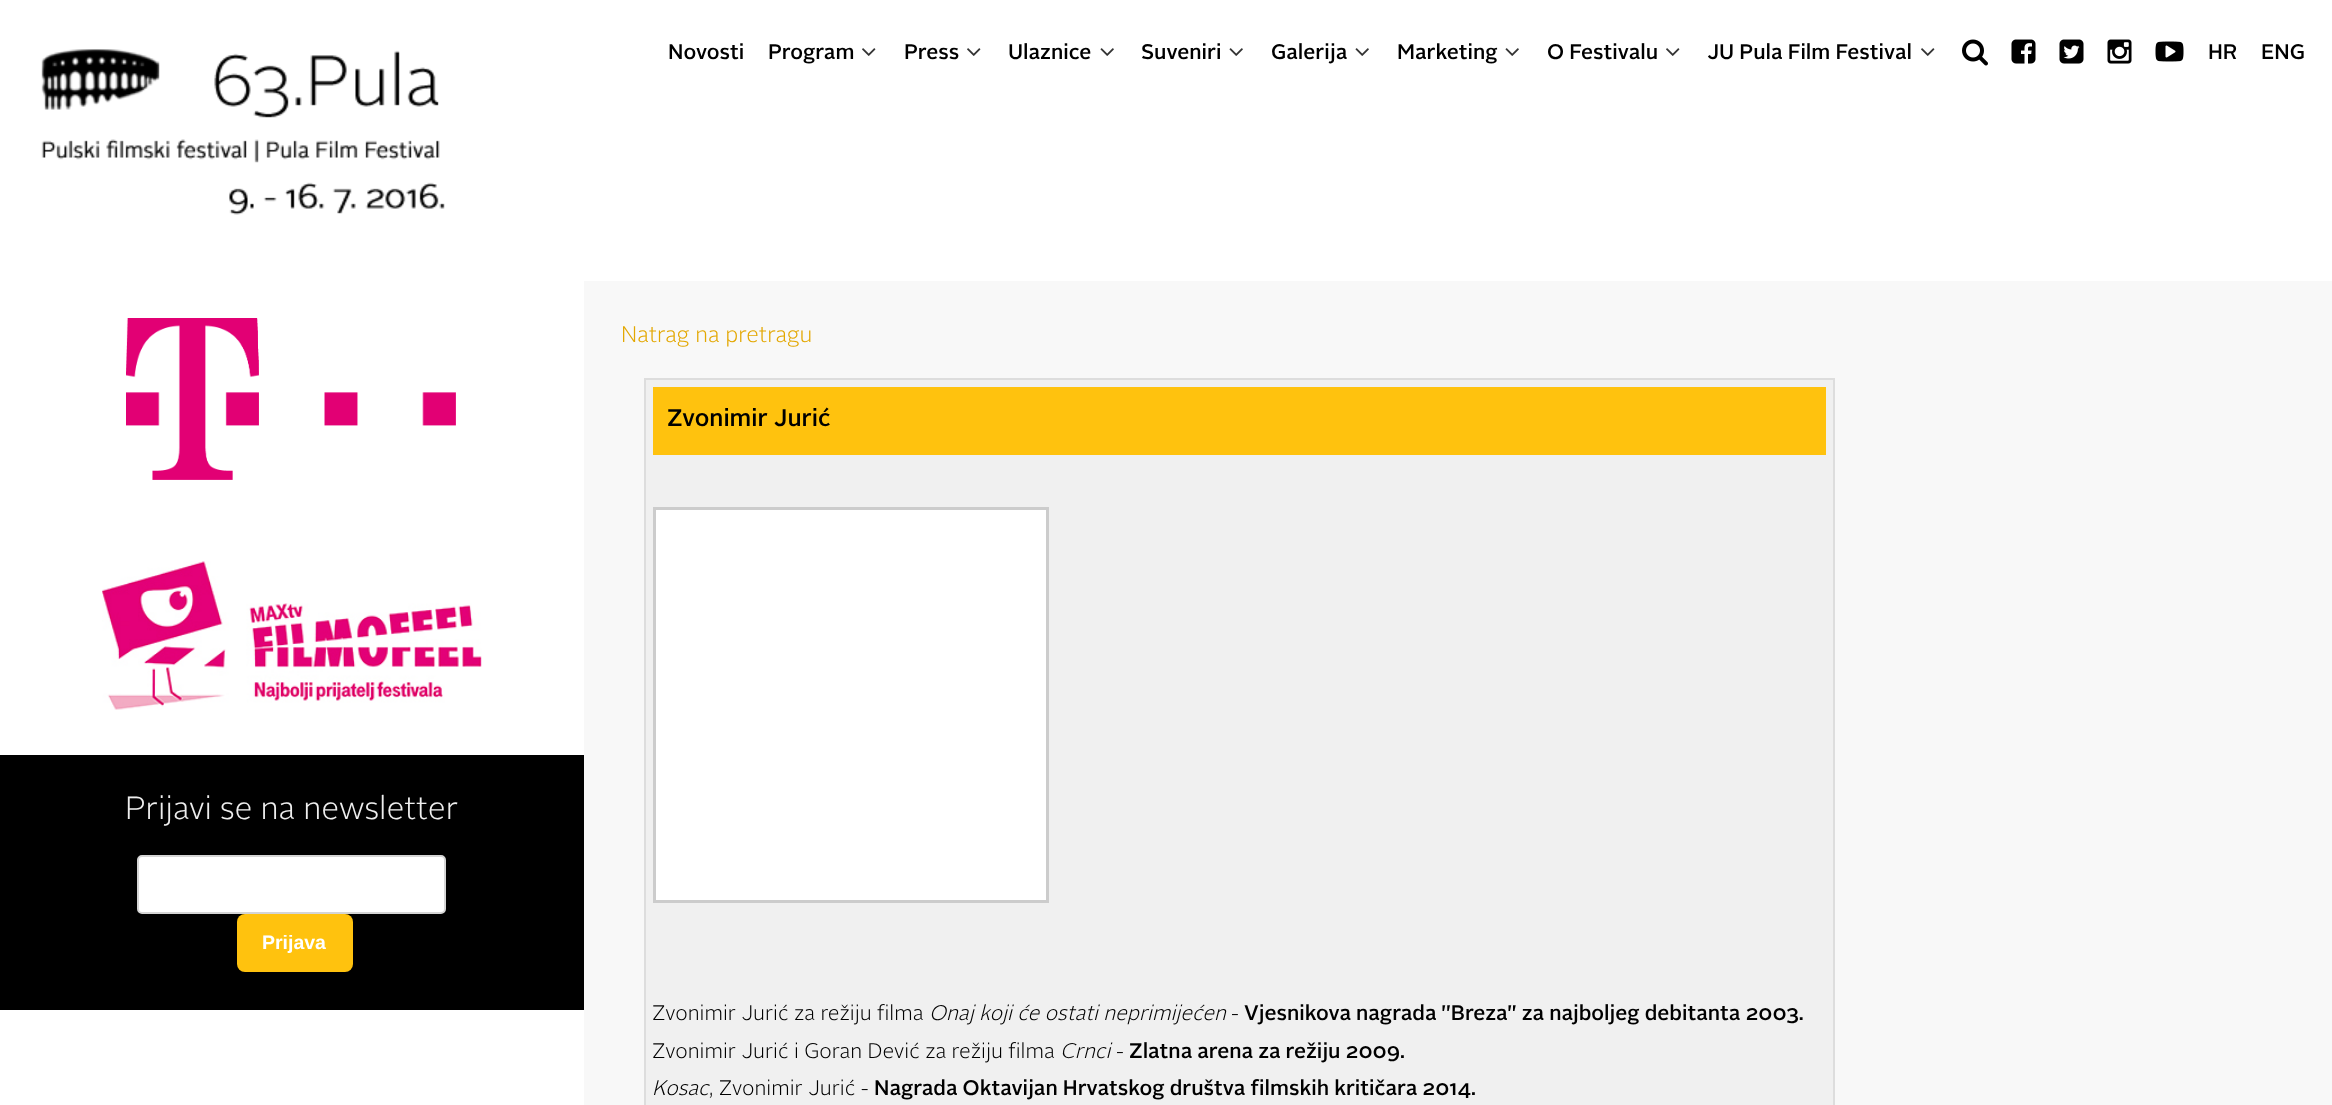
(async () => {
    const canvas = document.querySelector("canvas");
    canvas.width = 2332;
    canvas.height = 1105;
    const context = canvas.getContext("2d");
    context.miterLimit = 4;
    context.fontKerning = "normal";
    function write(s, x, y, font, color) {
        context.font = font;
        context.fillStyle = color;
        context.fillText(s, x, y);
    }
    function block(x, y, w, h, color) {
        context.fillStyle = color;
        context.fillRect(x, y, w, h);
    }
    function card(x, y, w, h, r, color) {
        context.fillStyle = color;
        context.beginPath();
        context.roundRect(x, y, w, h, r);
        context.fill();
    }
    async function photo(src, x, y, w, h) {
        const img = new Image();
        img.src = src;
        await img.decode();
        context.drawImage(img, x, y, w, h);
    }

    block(0, 0, 2332, 1105, "rgb(255, 255, 255)");
    await photo("media/1.png", 41, 49, 404, 166);
    write("Novosti", 668, 59, "500 21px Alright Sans", "rgb(0, 0, 0)");
    write("Program", 768, 59, "500 21px Alright Sans", "rgb(0, 0, 0)");
    await photo("media/2.png", 862, 48, 14, 8);
    write("Press", 904, 59, "500 21px Alright Sans", "rgb(0, 0, 0)");
    await photo("media/2.png", 967, 48, 14, 8);
    write("Ulaznice", 1008, 59, "500 21px Alright Sans", "rgb(0, 0, 0)");
    await photo("media/3.png", 1100, 48, 14, 8);
    write("Suveniri", 1141, 59, "500 21px Alright Sans", "rgb(0, 0, 0)");
    await photo("media/3.png", 1229, 48, 14, 8);
    write("Galerija", 1271, 59, "500 21px Alright Sans", "rgb(0, 0, 0)");
    await photo("media/3.png", 1355, 48, 14, 8);
    write("Marketing", 1397, 59, "500 21px Alright Sans", "rgb(0, 0, 0)");
    await photo("media/3.png", 1505, 48, 14, 8);
    write("O Festivalu", 1547, 59, "500 21px Alright Sans", "rgb(0, 0, 0)");
    await photo("media/2.png", 1666, 48, 14, 8);
    write("JU Pula Film Festival", 1707, 59, "500 21px Alright Sans", "rgb(0, 0, 0)");
    await photo("media/2.png", 1921, 48, 14, 8);
    await photo("media/4.png", 1962, 39, 26, 27);
    await photo("media/5.png", 2011, 39, 25, 25);
    await photo("media/6.png", 2059, 39, 25, 25);
    await photo("media/7.png", 2107, 39, 25, 25);
    await photo("media/8.png", 2155, 41, 29, 21);
    write("HR", 2208, 59, "500 21px Alright Sans", "rgb(0, 0, 0)");
    write("ENG", 2261, 59, "500 21px Alright Sans", "rgb(0, 0, 0)");
    await photo("media/9.png", 126, 318, 330, 162);
    await photo("media/10.png", 102, 561, 380, 149);
    block(0, 755, 584, 255, "rgb(0, 0, 0)");
    write("Prijavi se na newsletter", 125, 819, "300 32px Alright Sans", "rgb(238, 238, 238)");
    context.fillStyle = "rgb(255, 255, 255)";
    context.beginPath();
    context.roundRect(138, 856, 307, 57, 4);
    context.fill();
    context.strokeStyle = "rgb(213, 213, 213)";
    context.lineWidth = 2;
    context.stroke();
    card(237, 914, 116, 58, 8, "rgb(255, 194, 14)");
    write("Prijava", 262, 949, "bold 19.5px Liberation Sans", "rgb(255, 255, 255)");
    block(584, 281, 1748, 824, "rgb(248, 248, 248)");
    write("Natrag na pretragu", 621, 342, "300 22.5px Alright Sans", "rgb(227, 167, 0)");
    context.fillStyle = "rgb(240, 240, 240)";
    context.beginPath();
    context.rect(645, 379, 1189, 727);
    context.fill();
    context.strokeStyle = "rgb(221, 221, 221)";
    context.stroke();
    block(653, 387, 1173, 68, "rgb(255, 194, 14)");
    write("Zvonimir Jurić", 667, 426, "500 24px Alright Sans", "rgb(0, 0, 0)");
    context.fillStyle = "rgb(255, 255, 255)";
    context.beginPath();
    context.rect(654.5, 508.5, 393, 393);
    context.fill();
    context.strokeStyle = "rgb(204, 204, 204)";
    context.lineWidth = 3;
    context.stroke();
    write("Zvonimir Jurić za režiju filma", 652, 1020, "300 21px Alright Sans", "rgb(0, 0, 0)");
    write("Onaj koji će ostati neprimijećen", 929, 1020, "italic 300 21px Alright Sans", "rgb(0, 0, 0)");
    write("-", 1231, 1020, "300 21px Alright Sans", "rgb(0, 0, 0)");
    write("Vjesnikova nagrada ''Breza'' za najboljeg debitanta 2003.", 1244, 1020, "500 21px Alright Sans", "rgb(0, 0, 0)");
    write("Zvonimir Jurić i Goran Dević za režiju filma", 652, 1058, "300 21px Alright Sans", "rgb(0, 0, 0)");
    write("Crnci", 1060, 1058, "italic 300 21px Alright Sans", "rgb(0, 0, 0)");
    write("-", 1116, 1058, "300 21px Alright Sans", "rgb(0, 0, 0)");
    write("Zlatna arena za režiju 2009.", 1129, 1058, "500 21px Alright Sans", "rgb(0, 0, 0)");
    write("Kosac", 652, 1095, "italic 300 21px Alright Sans", "rgb(0, 0, 0)");
    write(", Zvonimir Jurić -", 709, 1095, "300 21px Alright Sans", "rgb(0, 0, 0)");
    write("Nagrada Oktavijan Hrvatskog društva filmskih kritičara 2014.", 874, 1095, "500 21px Alright Sans", "rgb(0, 0, 0)");
})();
